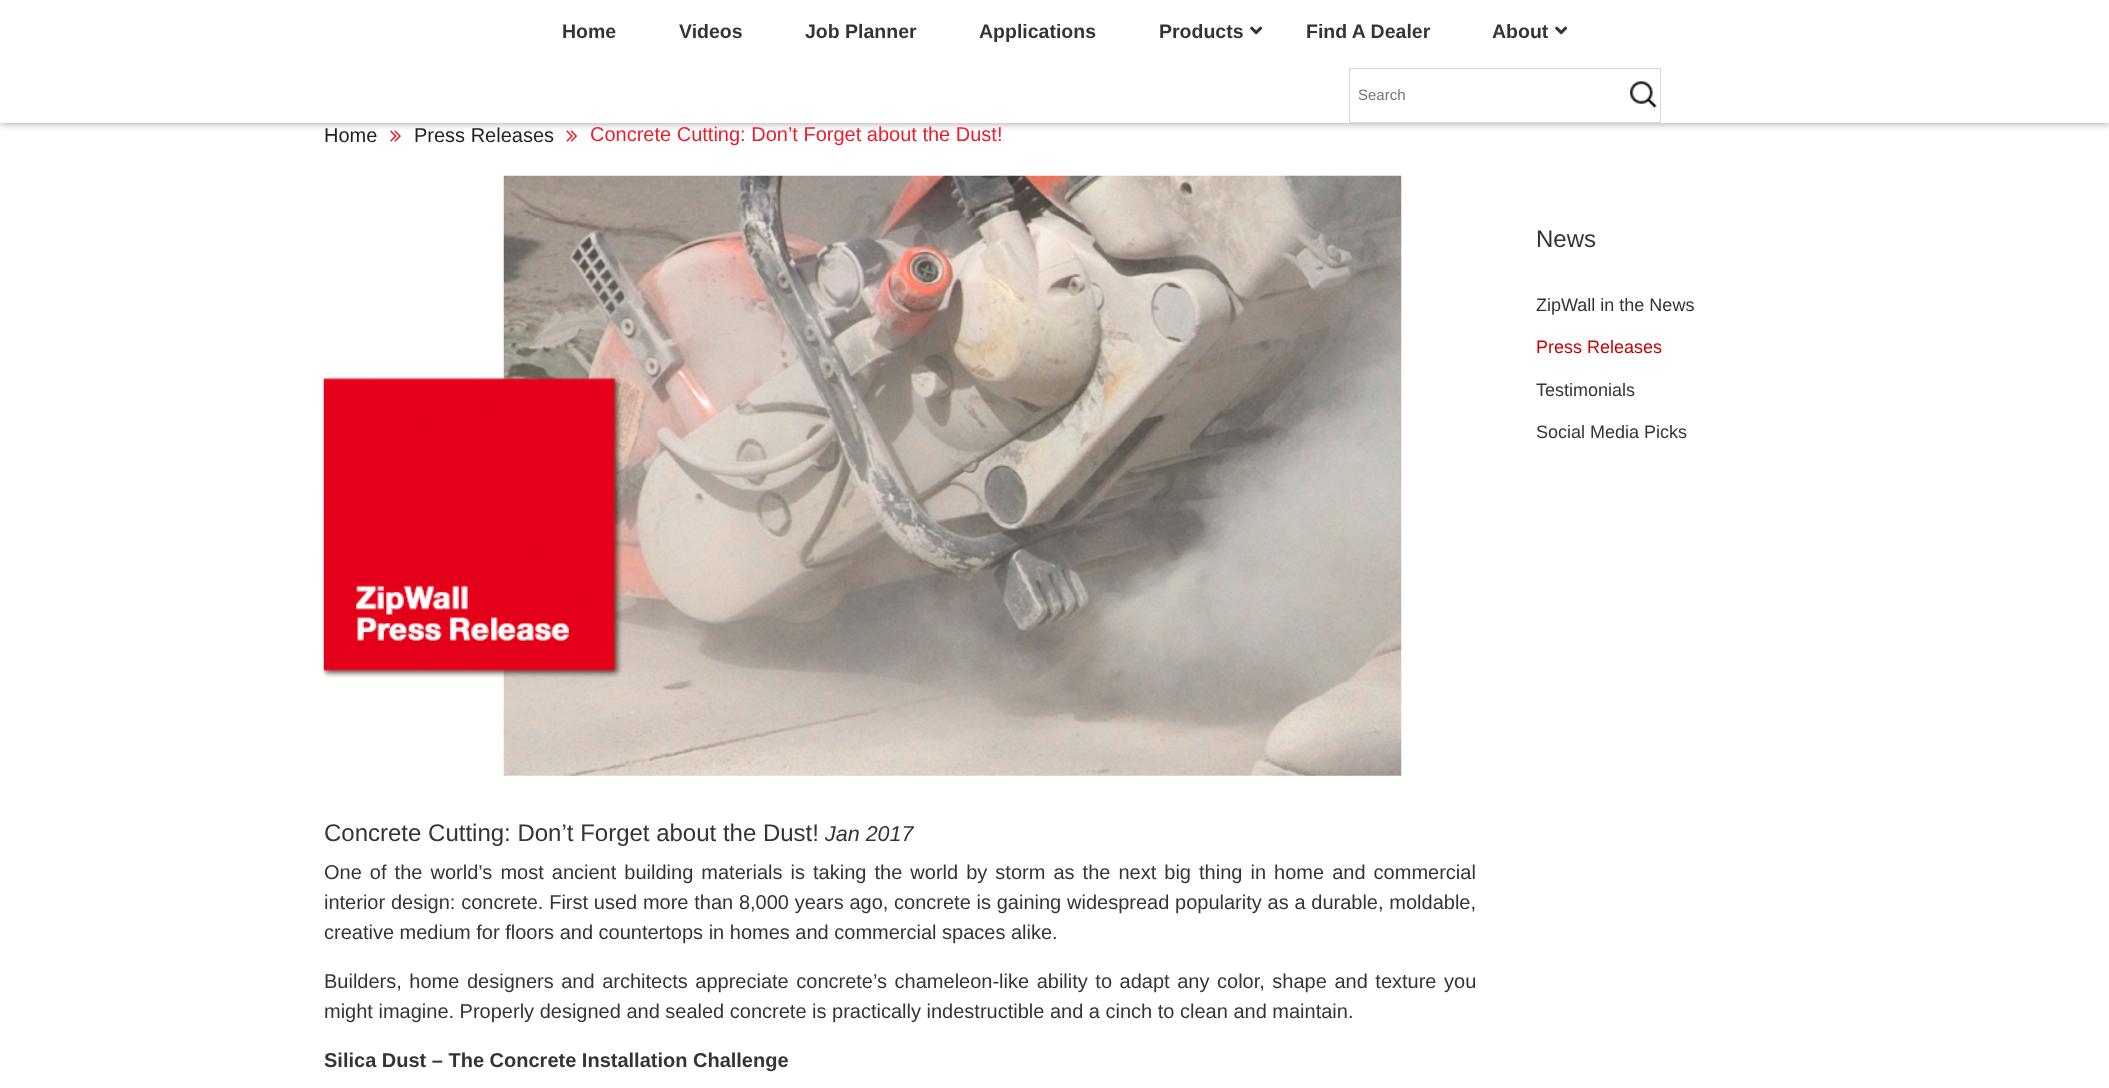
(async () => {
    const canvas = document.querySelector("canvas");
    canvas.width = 2109;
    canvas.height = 1088;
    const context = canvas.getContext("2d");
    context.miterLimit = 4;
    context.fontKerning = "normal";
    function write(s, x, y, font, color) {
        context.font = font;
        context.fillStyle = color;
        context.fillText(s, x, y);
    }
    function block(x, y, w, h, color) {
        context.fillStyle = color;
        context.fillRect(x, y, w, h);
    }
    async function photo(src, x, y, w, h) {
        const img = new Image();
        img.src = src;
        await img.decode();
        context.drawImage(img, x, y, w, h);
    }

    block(0, 0, 2109, 1088, "rgb(255, 255, 255)");
    await photo("media/3.png", 390, 130, 11, 12);
    await photo("media/4.png", 566, 130, 12, 12);
    context.fillStyle = "rgba(0, 0, 0, 0.26)";
    context.filter = "blur(3px)";
    context.beginPath();
    context.rect(0, 3, 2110, 122);
    context.fill();
    context.filter = "none";
    block(0, 0, 2109, 123, "rgb(255, 255, 255)");
    write("Home", 562, 38, "bold 19.5px Liberation Sans", "rgb(52, 52, 52)");
    write("Videos", 679, 38, "bold 19.5px Liberation Sans", "rgb(52, 52, 52)");
    write("Job Planner", 805, 38, "bold 19.5px Liberation Sans", "rgb(52, 52, 52)");
    write("Applications", 979, 38, "bold 19.5px Liberation Sans", "rgb(52, 52, 52)");
    write("Products", 1159, 38, "bold 19.5px Liberation Sans", "rgb(52, 52, 52)");
    await photo("media/1.png", 1250, 26, 13, 9);
    write("Find A Dealer", 1306, 38, "bold 19.5px Liberation Sans", "rgb(52, 52, 52)");
    write("About", 1492, 38, "bold 19.5px Liberation Sans", "rgb(52, 52, 52)");
    await photo("media/1.png", 1555, 26, 13, 9);
    await photo("media/2.png", 1630, 81, 27, 27);
    context.strokeStyle = "rgb(216, 216, 216)";
    context.strokeRect(1349.5, 68.5, 311, 54);
    write("Search", 1358, 100, "15px Liberation Sans", "rgb(117, 117, 117)");
    write("Home", 324, 142, "20px Liberation Sans", "rgb(34, 34, 34)");
    write("Press Releases", 414, 142, "20px Liberation Sans", "rgb(34, 34, 34)");
    write("Concrete Cutting: Don’t Forget about the Dust!", 590, 141, "20px Liberation Sans", "rgb(237, 28, 44)");
    write("News", 1536, 247, "24px Liberation Sans", "rgb(52, 52, 52)");
    write("ZipWall in the News", 1536, 311, "18px Liberation Sans", "rgb(52, 52, 52)");
    write("Press Releases", 1536, 353, "18px Liberation Sans", "rgb(205, 0, 0)");
    write("Testimonials", 1536, 396, "18px Liberation Sans", "rgb(52, 52, 52)");
    write("Social Media Picks", 1536, 438, "18px Liberation Sans", "rgb(52, 52, 52)");
    await photo("media/5.png", 323, 175, 1079, 601);
    write("Concrete Cutting: Don’t Forget about the Dust!", 324, 841, "24px Liberation Sans", "rgb(52, 52, 52)");
    write("Jan 2017", 825, 841, "italic 21.5px Liberation Sans", "rgb(52, 52, 52)");
    context.wordSpacing = "2.5px";
    write("One of the world’s most ancient building materials is taking the world by storm as the next big thing in home and commercial", 324, 879, "20px Liberation Sans", "rgb(52, 52, 52)");
    context.wordSpacing = "0.2px";
    write("interior design: concrete. First used more than 8,000 years ago, concrete is gaining widespread popularity as a durable, moldable,", 324, 909, "20px Liberation Sans", "rgb(52, 52, 52)");
    context.wordSpacing = "0px";
    write("creative medium for floors and countertops in homes and commercial spaces alike.", 324, 939, "20px Liberation Sans", "rgb(52, 52, 52)");
    context.wordSpacing = "2px";
    write("Builders, home designers and architects appreciate concrete’s chameleon-like ability to adapt any color, shape and texture you", 324, 988, "20px Liberation Sans", "rgb(52, 52, 52)");
    context.wordSpacing = "0px";
    write("might imagine. Properly designed and sealed concrete is practically indestructible and a cinch to clean and maintain.", 324, 1018, "20px Liberation Sans", "rgb(52, 52, 52)");
    write("Silica Dust – The Concrete Installation Challenge", 324, 1067, "bold 20px Liberation Sans", "rgb(52, 52, 52)");
})();
